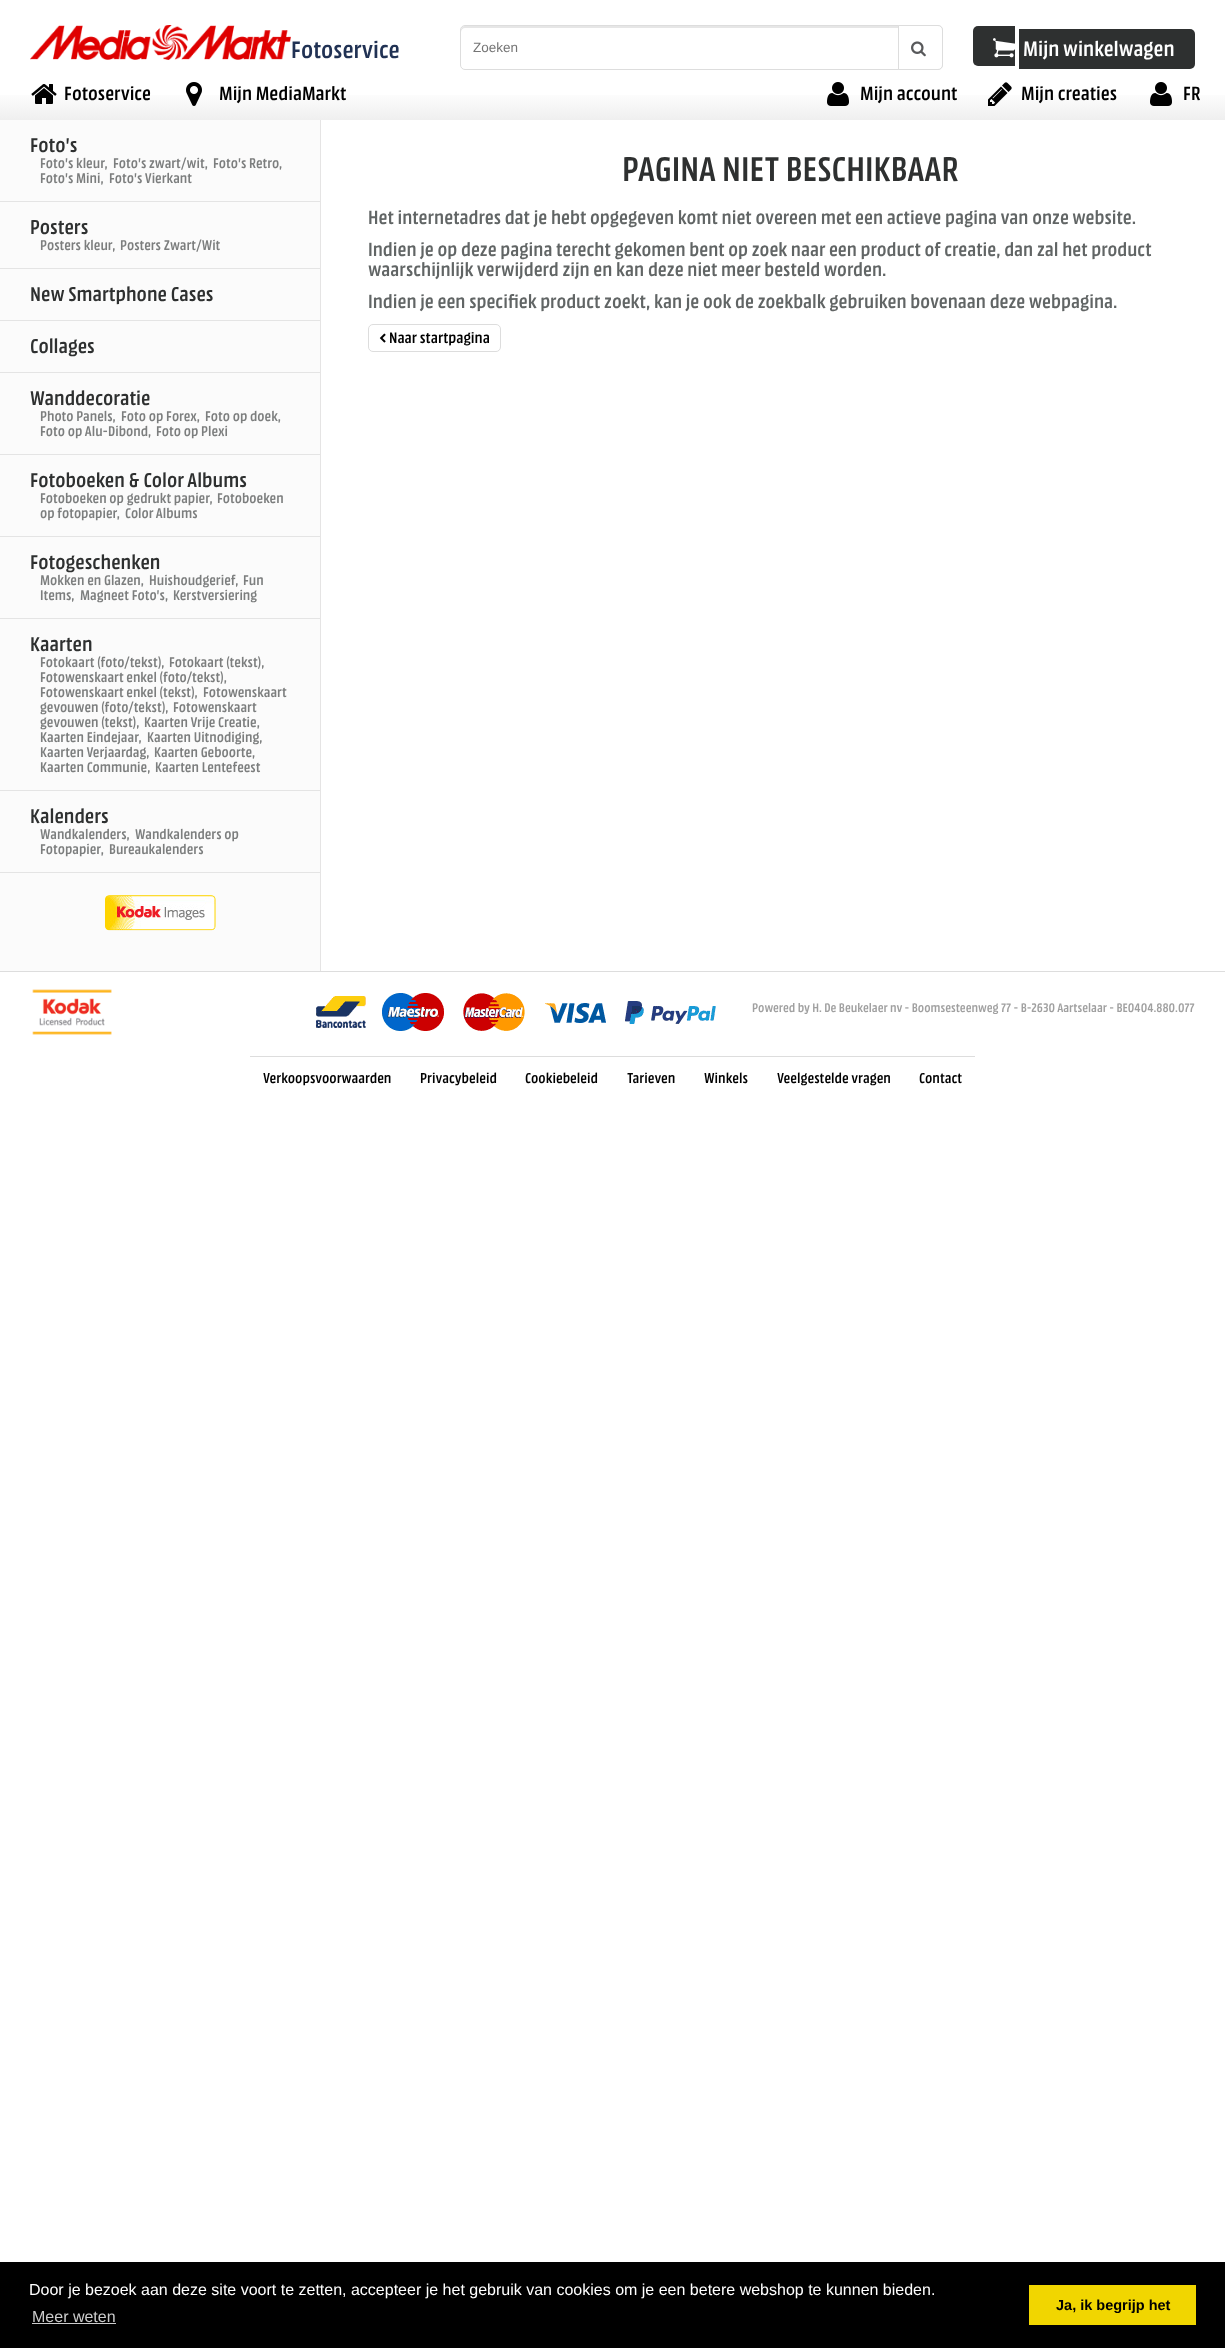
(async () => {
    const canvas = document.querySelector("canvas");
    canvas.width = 1225;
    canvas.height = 2348;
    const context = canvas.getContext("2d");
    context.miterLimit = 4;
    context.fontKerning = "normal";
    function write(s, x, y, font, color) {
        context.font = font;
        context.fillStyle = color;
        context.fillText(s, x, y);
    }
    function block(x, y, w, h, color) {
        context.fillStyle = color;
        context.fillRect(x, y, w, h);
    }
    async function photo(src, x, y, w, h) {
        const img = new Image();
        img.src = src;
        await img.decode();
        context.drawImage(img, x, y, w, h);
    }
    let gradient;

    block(0, 0, 1225, 2348, "rgb(255, 255, 255)");
    gradient = context.createLinearGradient(613, 0, 613, 120);
    gradient.addColorStop(0.75, "rgb(255, 255, 255)");
    gradient.addColorStop(1, "rgb(239, 239, 239)");
    context.fillStyle = gradient;
    context.fillRect(0, 95, 1225, 25);
    await photo("media/1.png", 30, 25, 261, 35);
    write("Fotoservice", 291, 58, "25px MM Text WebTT", "rgb(33, 50, 84)");
    context.fillStyle = "rgb(230, 230, 230)";
    context.beginPath();
    context.moveTo(465, 28);
    context.lineTo(938, 28);
    context.bezierCurveTo(940, 28, 942, 30, 942, 32);
    context.lineTo(942, 30);
    context.bezierCurveTo(942, 28, 940, 26, 938, 26);
    context.lineTo(465, 26);
    context.bezierCurveTo(463, 26, 461, 28, 461, 30);
    context.lineTo(461, 32);
    context.bezierCurveTo(461, 30, 463, 28, 465, 28);
    context.closePath();
    context.fill();
    context.beginPath();
    context.roundRect(460.5, 25.5, 482, 44, 4.5);
    context.strokeStyle = "rgb(221, 221, 221)";
    context.stroke();
    context.fillStyle = "rgb(255, 255, 255)";
    context.beginPath();
    context.roundRect(898.5, 25.5, 44, 44, [0, 4.5, 4.5, 0]);
    context.fill();
    context.stroke();
    write("Zoeken", 473, 52, "13.5px Liberation Sans", "rgb(117, 117, 117)");
    await photo("media/2.png", 911, 41, 15, 16);
    context.fillStyle = "rgb(46, 48, 48)";
    context.beginPath();
    context.roundRect(973, 26, 42, 40, [5, 0, 0, 5]);
    context.fill();
    await photo("media/3.png", 993, 38, 22, 20);
    context.beginPath();
    context.roundRect(1023, 29, 172, 40, [0, 5, 5, 0]);
    context.fill();
    write("Mijn winkelwagen", 1023, 56, "22px MM Text WebTT", "rgb(255, 255, 255)");
    block(1019, 29, 4, 40, "rgb(46, 48, 48)");
    await photo("media/4.png", 31, 84, 26, 20);
    write("Fotoservice", 64, 100, "20px MM Text WebTT", "rgb(0, 0, 0)");
    await photo("media/5.png", 186, 82, 16, 24);
    write("Mijn MediaMarkt", 219, 100, "20px MM Text WebTT", "rgb(0, 0, 0)");
    await photo("media/6.png", 827, 82, 22, 24);
    write("Mijn account", 860, 100, "20px MM Text WebTT", "rgb(0, 0, 0)");
    await photo("media/7.png", 988, 82, 24, 24);
    write("Mijn creaties", 1021, 100, "20px MM Text WebTT", "rgb(0, 0, 0)");
    await photo("media/6.png", 1150, 82, 22, 24);
    write("FR", 1183, 100, "20px MM Text WebTT", "rgb(0, 0, 0)");
    block(0, 120, 320, 851, "rgb(251, 251, 251)");
    block(320, 120, 1, 851, "rgb(229, 228, 228)");
    block(0, 201, 320, 1, "rgb(228, 228, 228)");
    write("Foto's", 30, 152, "21px MM Text WebTT", "rgb(46, 48, 48)");
    write("Foto's kleur,", 40, 168, "14.75px MM Text WebTT", "rgb(124, 126, 126)");
    write("Foto's zwart/wit,", 113, 168, "14.75px MM Text WebTT", "rgb(124, 126, 126)");
    write("Foto's Retro,", 213, 168, "14.75px MM Text WebTT", "rgb(124, 126, 126)");
    write("Foto's Mini,", 40, 183, "14.75px MM Text WebTT", "rgb(124, 126, 126)");
    write("Foto's Vierkant", 109, 183, "14.75px MM Text WebTT", "rgb(124, 126, 126)");
    block(0, 268, 320, 1, "rgb(228, 228, 228)");
    write("Posters", 30, 234, "21px MM Text WebTT", "rgb(46, 48, 48)");
    write("Posters kleur,", 40, 250, "14.75px MM Text WebTT", "rgb(124, 126, 126)");
    write("Posters Zwart/Wit", 120, 250, "14.75px MM Text WebTT", "rgb(124, 126, 126)");
    block(0, 320, 320, 1, "rgb(228, 228, 228)");
    write("New Smartphone Cases", 30, 301, "21px MM Text WebTT", "rgb(46, 48, 48)");
    block(0, 372, 320, 1, "rgb(228, 228, 228)");
    write("Collages", 30, 353, "21px MM Text WebTT", "rgb(46, 48, 48)");
    block(0, 454, 320, 1, "rgb(228, 228, 228)");
    write("Wanddecoratie", 30, 405, "21px MM Text WebTT", "rgb(46, 48, 48)");
    write("Photo Panels,", 40, 421, "14.75px MM Text WebTT", "rgb(124, 126, 126)");
    write("Foto op Forex,", 121, 421, "14.75px MM Text WebTT", "rgb(124, 126, 126)");
    write("Foto op doek,", 205, 421, "14.75px MM Text WebTT", "rgb(124, 126, 126)");
    write("Foto op Alu-Dibond,", 40, 436, "14.75px MM Text WebTT", "rgb(124, 126, 126)");
    write("Foto op Plexi", 156, 436, "14.75px MM Text WebTT", "rgb(124, 126, 126)");
    block(0, 536, 320, 1, "rgb(228, 228, 228)");
    write("Fotoboeken & Color Albums", 30, 487, "21px MM Text WebTT", "rgb(46, 48, 48)");
    write("Fotoboeken op gedrukt papier,", 40, 503, "14.75px MM Text WebTT", "rgb(124, 126, 126)");
    write("Fotoboeken", 217, 503, "14.75px MM Text WebTT", "rgb(124, 126, 126)");
    write("op fotopapier,", 40, 518, "14.75px MM Text WebTT", "rgb(124, 126, 126)");
    write("Color Albums", 125, 518, "14.75px MM Text WebTT", "rgb(124, 126, 126)");
    block(0, 618, 320, 1, "rgb(228, 228, 228)");
    write("Fotogeschenken", 30, 569, "21px MM Text WebTT", "rgb(46, 48, 48)");
    write("Mokken en Glazen,", 40, 585, "14.75px MM Text WebTT", "rgb(124, 126, 126)");
    write("Huishoudgerief,", 149, 585, "14.75px MM Text WebTT", "rgb(124, 126, 126)");
    write("Fun", 243, 585, "14.75px MM Text WebTT", "rgb(124, 126, 126)");
    write("Items,", 40, 600, "14.75px MM Text WebTT", "rgb(124, 126, 126)");
    write("Magneet Foto's,", 80, 600, "14.75px MM Text WebTT", "rgb(124, 126, 126)");
    write("Kerstversiering", 173, 600, "14.75px MM Text WebTT", "rgb(124, 126, 126)");
    block(0, 790, 320, 1, "rgb(228, 228, 228)");
    write("Kaarten", 30, 651, "21px MM Text WebTT", "rgb(46, 48, 48)");
    write("Fotokaart (foto/tekst),", 40, 667, "14.75px MM Text WebTT", "rgb(124, 126, 126)");
    write("Fotokaart (tekst),", 169, 667, "14.75px MM Text WebTT", "rgb(124, 126, 126)");
    write("Fotowenskaart enkel (foto/tekst),", 40, 682, "14.75px MM Text WebTT", "rgb(124, 126, 126)");
    write("Fotowenskaart enkel (tekst),", 40, 697, "14.75px MM Text WebTT", "rgb(124, 126, 126)");
    write("Fotowenskaart", 203, 697, "14.75px MM Text WebTT", "rgb(124, 126, 126)");
    write("gevouwen (foto/tekst),", 40, 712, "14.75px MM Text WebTT", "rgb(124, 126, 126)");
    write("Fotowenskaart", 173, 712, "14.75px MM Text WebTT", "rgb(124, 126, 126)");
    write("gevouwen (tekst),", 40, 727, "14.75px MM Text WebTT", "rgb(124, 126, 126)");
    write("Kaarten Vrije Creatie,", 144, 727, "14.75px MM Text WebTT", "rgb(124, 126, 126)");
    write("Kaarten Eindejaar,", 40, 742, "14.75px MM Text WebTT", "rgb(124, 126, 126)");
    write("Kaarten Uitnodiging,", 147, 742, "14.75px MM Text WebTT", "rgb(124, 126, 126)");
    write("Kaarten Verjaardag,", 40, 757, "14.75px MM Text WebTT", "rgb(124, 126, 126)");
    write("Kaarten Geboorte,", 154, 757, "14.75px MM Text WebTT", "rgb(124, 126, 126)");
    write("Kaarten Communie,", 40, 772, "14.75px MM Text WebTT", "rgb(124, 126, 126)");
    write("Kaarten Lentefeest", 155, 772, "14.75px MM Text WebTT", "rgb(124, 126, 126)");
    block(0, 872, 320, 1, "rgb(228, 228, 228)");
    write("Kalenders", 30, 823, "21px MM Text WebTT", "rgb(46, 48, 48)");
    write("Wandkalenders,", 40, 839, "14.75px MM Text WebTT", "rgb(124, 126, 126)");
    write("Wandkalenders op", 135, 839, "14.75px MM Text WebTT", "rgb(124, 126, 126)");
    write("Fotopapier,", 40, 854, "14.75px MM Text WebTT", "rgb(124, 126, 126)");
    write("Bureaukalenders", 109, 854, "14.75px MM Text WebTT", "rgb(124, 126, 126)");
    await photo("media/8.png", 105, 895, 111, 36);
    write("PAGINA NIET BESCHIKBAAR", 622, 181, "36px MM Text WebTT", "rgb(46, 48, 48)");
    write("Het internetadres dat je hebt opgegeven komt niet overeen met een actieve pagina van onze website.", 368, 224, "20px MM Text WebTT", "rgb(97, 101, 101)");
    write("Indien je op deze pagina terecht gekomen bent op zoek naar een product of creatie, dan zal het product", 368, 256, "20px MM Text WebTT", "rgb(97, 101, 101)");
    write("waarschijnlijk verwijderd zijn en kan deze niet meer besteld worden.", 368, 276, "20px MM Text WebTT", "rgb(97, 101, 101)");
    write("Indien je een specifiek product zoekt, kan je ook de zoekbalk gebruiken bovenaan deze webpagina.", 368, 308, "20px MM Text WebTT", "rgb(97, 101, 101)");
    context.beginPath();
    context.roundRect(368.5, 324.5, 132, 27, 4.5);
    context.stroke();
    await photo("media/9.png", 379, 333, 7, 10);
    write("Naar startpagina", 389, 343, "16px MM Text WebTT", "rgb(0, 0, 0)");
    block(0, 971, 1225, 1, "rgb(221, 221, 221)");
    await photo("media/10.png", 32, 989, 80, 46);
    write("Powered by H. De Beukelaer nv - Boomsesteenweg 77 - B-2630 Aartselaar - BE0404.880.077", 752, 1012, "13px MM Text WebTT", "rgb(160, 160, 160)");
    block(250, 1056, 725, 1, "rgb(221, 221, 221)");
    await photo("media/11.png", 316, 993, 400, 38);
    write("Verkoopsvoorwaarden", 263, 1083, "15px MM Text WebTT", "rgb(0, 0, 0)");
    write("Privacybeleid", 420, 1083, "15px MM Text WebTT", "rgb(0, 0, 0)");
    write("Cookiebeleid", 525, 1083, "15px MM Text WebTT", "rgb(0, 0, 0)");
    write("Tarieven", 627, 1083, "15px MM Text WebTT", "rgb(0, 0, 0)");
    write("Winkels", 704, 1083, "15px MM Text WebTT", "rgb(0, 0, 0)");
    write("Veelgestelde vragen", 777, 1083, "15px MM Text WebTT", "rgb(0, 0, 0)");
    write("Contact", 919, 1083, "15px MM Text WebTT", "rgb(0, 0, 0)");
    block(0, 2262, 1225, 86, "rgb(0, 0, 0)");
    write("Door je bezoek aan deze site voort te zetten, accepteer je het gebruik van cookies om je een betere webshop te kunnen bieden.", 29, 2295, "16px Liberation Sans", "rgb(255, 255, 255)");
    write("Meer weten", 32, 2322, "16px Liberation Sans", "rgb(204, 204, 204)");
    block(32, 2323, 84, 1, "rgb(204, 204, 204)");
    block(1029, 2285, 167, 40, "rgb(241, 214, 0)");
    write("Ja, ik begrijp het", 1056, 2310, "bold 14.5px Liberation Sans", "rgb(0, 0, 0)");
})();
